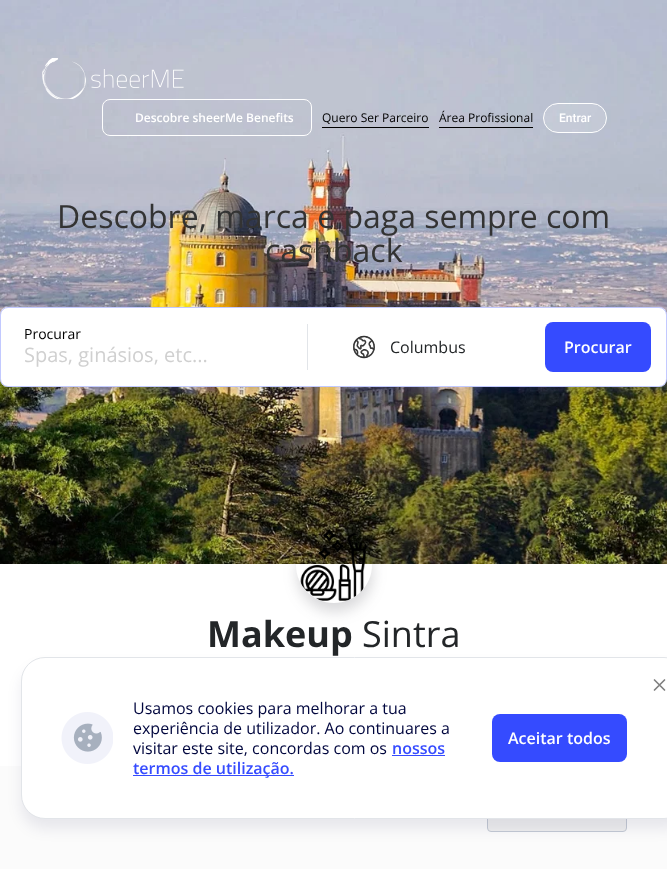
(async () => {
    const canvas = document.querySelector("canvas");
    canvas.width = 667;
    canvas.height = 869;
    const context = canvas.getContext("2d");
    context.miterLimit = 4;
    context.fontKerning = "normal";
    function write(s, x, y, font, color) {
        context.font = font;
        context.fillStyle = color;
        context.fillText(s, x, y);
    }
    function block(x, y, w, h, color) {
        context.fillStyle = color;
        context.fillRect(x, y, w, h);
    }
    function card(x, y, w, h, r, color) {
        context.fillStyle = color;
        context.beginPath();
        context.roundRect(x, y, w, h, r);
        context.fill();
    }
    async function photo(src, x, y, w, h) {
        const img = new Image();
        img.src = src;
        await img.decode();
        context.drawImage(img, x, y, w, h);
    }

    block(0, 0, 667, 869, "rgb(255, 255, 255)");
    await photo("media/1.png", 0, 0, 667, 564);
    await photo("media/2.png", 42, 58, 142, 41);
    context.beginPath();
    context.roundRect(102.5, 99.5, 209, 36, 7.5);
    context.strokeStyle = "rgb(255, 255, 255)";
    context.stroke();
    write("Descobre sheerMe Benefits", 135, 122, "600 12px Open Sans", "rgb(255, 255, 255)");
    block(322, 127, 107, 1, "rgb(0, 0, 0)");
    write("Quero Ser Parceiro", 322, 122, "12px Open Sans", "rgb(0, 0, 0)");
    block(439, 127, 94, 1, "rgb(0, 0, 0)");
    write("Área Profissional", 439, 122, "12px Open Sans", "rgb(0, 0, 0)");
    context.fillStyle = "rgba(255, 255, 255, 0.16)";
    context.beginPath();
    context.roundRect(543.5, 103.5, 63, 29, 14.5);
    context.fill();
    context.stroke();
    write("Entrar", 559, 122, "500 12px Roboto", "rgb(255, 255, 255)");
    write("Descobre, marca e paga sempre com", 57, 228, "32px Open Sans", "rgb(51, 51, 51)");
    write("cashback", 265, 262, "32px Open Sans", "rgb(51, 51, 51)");
    context.fillStyle = "rgba(53, 75, 255, 0.1)";
    context.filter = "blur(4px)";
    context.beginPath();
    context.roundRect(7, 312, 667, 80, 8);
    context.fill();
    context.filter = "none";
    card(0, 307, 667, 80, 8, "rgb(255, 255, 255)");
    context.beginPath();
    context.roundRect(0.5, 307.5, 666, 79, 7.5);
    context.strokeStyle = "rgba(53, 75, 255, 0.3)";
    context.stroke();
    write("Procurar", 24, 339, "14px Open Sans", "rgb(0, 0, 0)");
    write("Spas, ginásios, etc...", 24, 362, "20px Open Sans", "rgb(208, 208, 208)");
    block(307, 324, 1, 46, "rgb(226, 229, 233)");
    await photo("media/3.png", 353, 335, 22, 24);
    write("Columbus", 390, 353, "16px Open Sans", "rgb(35, 38, 40)");
    card(545, 322, 106, 50, 8, "rgb(53, 75, 255)");
    write("Procurar", 564, 353, "600 16px Open Sans", "rgb(255, 255, 255)");
    context.save();
    context.beginPath();
    context.moveTo(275, 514);
    context.lineTo(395, 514);
    context.lineTo(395, 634);
    context.lineTo(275, 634);
    context.closePath();
    context.moveTo(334, 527);
    context.bezierCurveTo(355, 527, 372, 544, 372, 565);
    context.bezierCurveTo(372, 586, 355, 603, 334, 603);
    context.bezierCurveTo(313, 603, 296, 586, 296, 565);
    context.bezierCurveTo(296, 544, 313, 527, 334, 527);
    context.closePath();
    context.clip("evenodd");
    context.fillStyle = "rgba(76, 77, 86, 0.21)";
    context.filter = "blur(7px)";
    context.beginPath();
    context.roundRect(297, 536, 76, 76, 38);
    context.fill();
    context.filter = "none";
    context.restore();
    await photo("media/4.png", 300, 529, 67, 72);
    write("Makeup", 207, 647, "bold 36px Open Sans", "rgb(35, 38, 40)");
    write("Sintra", 362, 647, "36px Open Sans", "rgb(35, 38, 40)");
    block(0, 766, 667, 103, "rgb(251, 251, 251)");
    context.fillStyle = "rgb(239, 239, 239)";
    context.beginPath();
    context.roundRect(487.5, 795.5, 139, 36, 3.5);
    context.fill();
    context.strokeStyle = "rgb(196, 202, 212)";
    context.stroke();
    context.fillStyle = "rgba(0, 6, 62, 0.08)";
    context.filter = "blur(7px)";
    context.beginPath();
    context.roundRect(21, 667, 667, 162, 24);
    context.fill();
    context.filter = "none";
    context.fillStyle = "rgb(255, 255, 255)";
    context.beginPath();
    context.roundRect(21.5, 657.5, 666, 161, 23.5);
    context.fill();
    context.strokeStyle = "rgb(226, 229, 233)";
    context.stroke();
    context.beginPath();
    context.moveTo(664.5, 680);
    context.lineTo(654.5, 690);
    context.moveTo(654.5, 680);
    context.lineTo(664.5, 690);
    context.strokeStyle = "rgb(128, 128, 128)";
    context.lineWidth = 1.7;
    context.lineCap = "round";
    context.lineJoin = "round";
    context.stroke();
    await photo("media/5.png", 61, 712, 52, 52);
    write("Usamos cookies para melhorar a tua", 133, 714, "16px Open Sans", "rgb(0, 6, 62)");
    write("experiência de utilizador. Ao continuares a", 133, 734, "16px Open Sans", "rgb(0, 6, 62)");
    write("visitar este site, concordas com os", 133, 754, "16px Open Sans", "rgb(0, 6, 62)");
    write("nossos", 392, 754, "600 16px Open Sans", "rgb(53, 75, 255)");
    block(392, 755, 53, 1, "rgb(53, 75, 255)");
    block(133, 775, 161, 1, "rgb(53, 75, 255)");
    write("termos de utilização.", 133, 774, "600 16px Open Sans", "rgb(53, 75, 255)");
    card(492, 714, 135, 48, 8, "rgb(53, 75, 255)");
    write("Aceitar todos", 508, 744, "600 16px Open Sans", "rgb(255, 255, 255)");
})();
